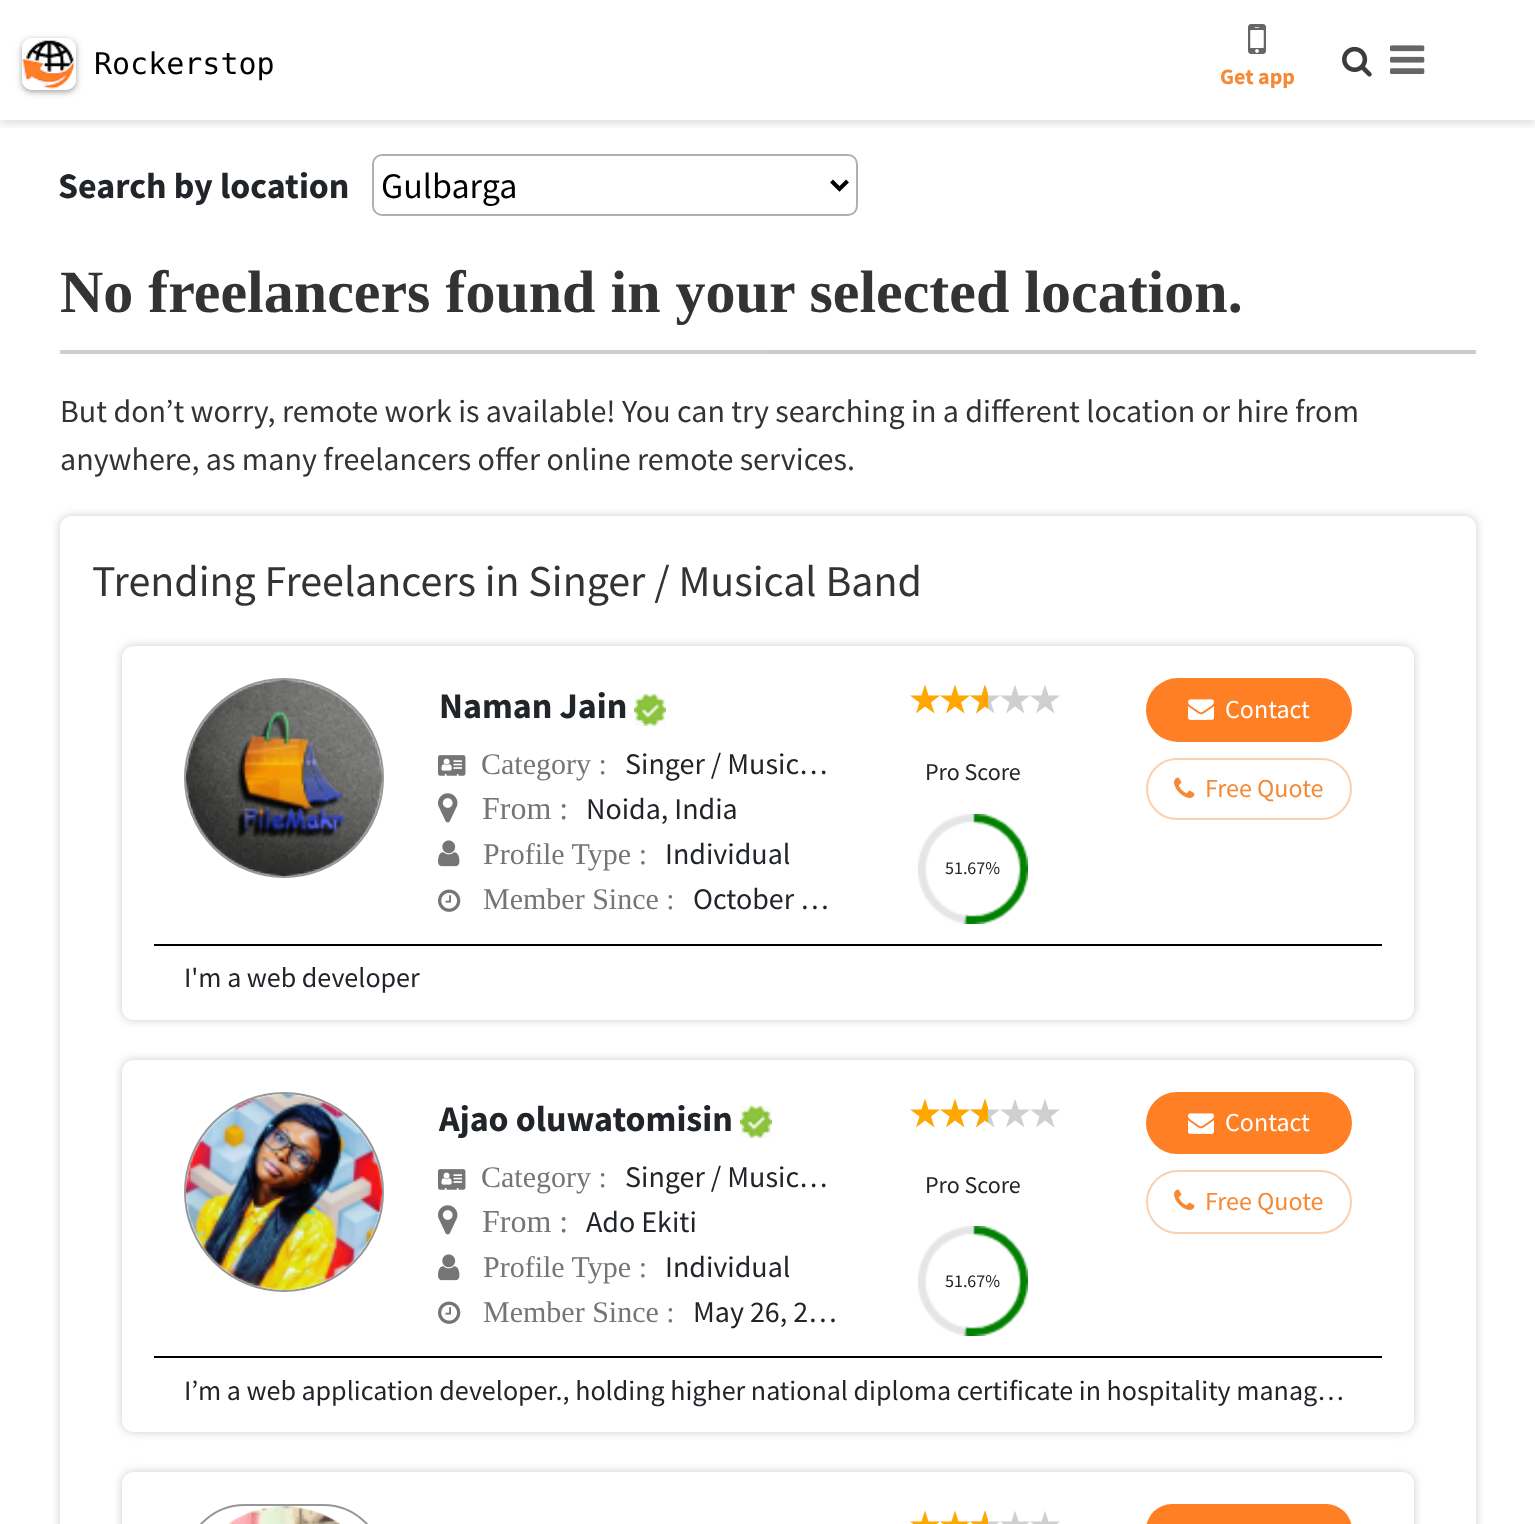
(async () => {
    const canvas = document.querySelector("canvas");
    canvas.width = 1535;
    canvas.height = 1524;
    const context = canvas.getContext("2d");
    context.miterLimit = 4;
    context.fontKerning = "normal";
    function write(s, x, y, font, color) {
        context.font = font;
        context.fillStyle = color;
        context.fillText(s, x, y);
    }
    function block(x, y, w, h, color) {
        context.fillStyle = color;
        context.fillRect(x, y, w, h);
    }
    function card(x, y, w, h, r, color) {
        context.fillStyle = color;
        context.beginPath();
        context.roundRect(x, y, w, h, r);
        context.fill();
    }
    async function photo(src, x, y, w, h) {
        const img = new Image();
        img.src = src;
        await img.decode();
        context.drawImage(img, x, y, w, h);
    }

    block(0, 0, 1535, 1524, "rgb(255, 255, 255)");
    context.save();
    context.beginPath();
    context.rect(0, 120, 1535, 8);
    context.clip();
    context.fillStyle = "rgba(0, 0, 0, 0.12)";
    context.filter = "blur(4px)";
    context.beginPath();
    context.rect(0, 4, 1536, 120);
    context.fill();
    context.filter = "none";
    context.restore();
    context.fillStyle = "rgba(60, 64, 67, 0.15)";
    context.filter = "blur(3px)";
    context.beginPath();
    context.roundRect(20, 38, 58, 56, 12);
    context.fill();
    context.filter = "none";
    context.fillStyle = "rgba(60, 64, 67, 0.3)";
    context.filter = "blur(2px)";
    context.beginPath();
    context.roundRect(22, 40, 54, 52, 10);
    context.fill();
    context.filter = "none";
    card(22, 38, 54, 52, 10, "rgb(255, 255, 255)");
    await photo("media/1.png", 22, 40, 54, 50);
    write("Rockerstop", 94, 74, "30px DejaVu Sans Mono", "rgb(0, 0, 0)");
    await photo("media/2.png", 1342, 46, 30, 31);
    await photo("media/3.png", 1248, 24, 18, 30);
    write("Get app", 1220, 84, "bold 22px Source Sans Pro", "rgb(245, 137, 54)");
    await photo("media/4.png", 1390, 45, 35, 29);
    write("Search by location", 58, 198, "bold 36px Source Sans Pro", "rgb(33, 37, 41)");
    context.beginPath();
    context.roundRect(373, 155, 484, 60, 9);
    context.strokeStyle = "rgb(177, 176, 176)";
    context.lineWidth = 2;
    context.stroke();
    context.beginPath();
    context.moveTo(831.5, 181);
    context.lineTo(839.5, 189);
    context.lineTo(847.5, 181);
    context.strokeStyle = "rgb(0, 0, 0)";
    context.lineWidth = 4;
    context.stroke();
    write("Gulbarga", 381, 198, "36px Source Sans Pro", "rgb(0, 0, 0)");
    write("No freelancers found in your selected location.", 60, 312, "bold 60px Liberation Serif", "rgb(51, 51, 51)");
    block(60, 350, 708, 4, "rgb(206, 206, 206)");
    block(768, 350, 708, 4, "rgb(204, 204, 204)");
    write("But don’t worry, remote work is available! You can try searching in a different location or hire from", 60, 422, "32px Source Sans Pro", "rgb(51, 51, 51)");
    write("anywhere, as many freelancers offer online remote services.", 60, 470, "32px Source Sans Pro", "rgb(51, 51, 51)");
    context.fillStyle = "rgb(204, 204, 204)";
    context.filter = "blur(5px)";
    context.beginPath();
    context.roundRect(60, 516, 1416, 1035, 12);
    context.fill();
    context.filter = "none";
    card(60, 516, 1416, 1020, 12, "rgb(255, 255, 255)");
    write("Trending Freelancers in Singer / Musical Band", 92, 596, "44px Source Sans Pro", "rgb(51, 51, 51)");
    context.fillStyle = "rgb(204, 204, 204)";
    context.filter = "blur(5px)";
    context.beginPath();
    context.roundRect(122, 646, 1292, 374, 12);
    context.fill();
    context.filter = "none";
    card(122, 646, 1292, 374, 12, "rgb(255, 255, 255)");
    context.beginPath();
    context.arc(284, 778, 99, 0, Math.PI * 2);
    context.strokeStyle = "rgb(151, 151, 151)";
    context.lineWidth = 2;
    context.stroke();
    await photo("media/5.png", 186, 680, 196, 196);
    write("Naman Jain", 439, 718, "bold 36px Source Sans Pro", "rgb(33, 37, 41)");
    await photo("media/6.png", 634, 694, 32, 32);
    await photo("media/7.png", 438, 755, 28, 21);
    write("Category :", 481, 774, "30px Liberation Serif", "rgb(117, 117, 117)");
    write("Singer / Music…", 625, 774, "30px Source Sans Pro", "rgb(33, 37, 41)");
    await photo("media/8.png", 438, 793, 20, 30);
    write("From :", 482, 819, "32px Liberation Serif", "rgb(117, 117, 117)");
    write("Noida, India", 586, 819, "30px Source Sans Pro", "rgb(33, 37, 41)");
    await photo("media/9.png", 438, 840, 22, 27);
    write("Profile Type :", 483, 864, "30px Liberation Serif", "rgb(117, 117, 117)");
    write("Individual", 665, 864, "30px Source Sans Pro", "rgb(33, 37, 41)");
    await photo("media/10.png", 438, 889, 23, 23);
    write("Member Since :", 483, 909, "30px Liberation Serif", "rgb(117, 117, 117)");
    write("October …", 693, 909, "30px Source Sans Pro", "rgb(33, 37, 41)");
    card(1146, 678, 206, 64, 32, "rgb(255, 127, 37)");
    await photo("media/11.png", 1188, 699, 26, 21);
    write("Contact", 1225, 718, "26px Source Sans Pro", "rgb(255, 255, 255)");
    context.beginPath();
    context.roundRect(1147, 759, 204, 60, 30);
    context.strokeStyle = "rgb(251, 208, 175)";
    context.stroke();
    await photo("media/12.png", 1174, 777, 21, 21);
    write("Free Quote", 1205, 797, "26px Source Sans Pro", "rgb(245, 137, 54)");
    context.fillStyle = "rgb(255, 167, 0)";
    context.beginPath();
    context.moveTo(925, 684.5);
    context.lineTo(928.5, 695.5);
    context.lineTo(940, 695.5);
    context.lineTo(931, 702.5);
    context.lineTo(934.5, 713.5);
    context.lineTo(925, 706.5);
    context.lineTo(916, 713.5);
    context.lineTo(919.5, 702.5);
    context.lineTo(910, 695.5);
    context.lineTo(921.5, 695.5);
    context.closePath();
    context.moveTo(955, 684.5);
    context.lineTo(958.5, 695.5);
    context.lineTo(970, 695.5);
    context.lineTo(961, 702.5);
    context.lineTo(964.5, 713.5);
    context.lineTo(955, 706.5);
    context.lineTo(946, 713.5);
    context.lineTo(949.5, 702.5);
    context.lineTo(940, 695.5);
    context.lineTo(951.5, 695.5);
    context.closePath();
    context.fill();
    context.fillStyle = "rgb(207, 207, 207)";
    context.beginPath();
    context.moveTo(985, 684.5);
    context.lineTo(988.5, 695.5);
    context.lineTo(1000, 695.5);
    context.lineTo(991, 702.5);
    context.lineTo(994.5, 713.5);
    context.lineTo(985, 706.5);
    context.lineTo(976, 713.5);
    context.lineTo(979.5, 702.5);
    context.lineTo(970, 695.5);
    context.lineTo(981.5, 695.5);
    context.closePath();
    context.moveTo(1015, 684.5);
    context.lineTo(1018.5, 695.5);
    context.lineTo(1030, 695.5);
    context.lineTo(1021, 702.5);
    context.lineTo(1024.5, 713.5);
    context.lineTo(1015, 706.5);
    context.lineTo(1006, 713.5);
    context.lineTo(1009.5, 702.5);
    context.lineTo(1000, 695.5);
    context.lineTo(1011.5, 695.5);
    context.closePath();
    context.fill();
    context.save();
    context.beginPath();
    context.rect(970, 684, 18, 30);
    context.clip();
    context.fillStyle = "rgb(255, 167, 0)";
    context.beginPath();
    context.moveTo(985, 684.5);
    context.lineTo(988.5, 695.5);
    context.lineTo(1000, 695.5);
    context.lineTo(991, 702.5);
    context.lineTo(994.5, 713.5);
    context.lineTo(985, 706.5);
    context.lineTo(976, 713.5);
    context.lineTo(979.5, 702.5);
    context.lineTo(970, 695.5);
    context.lineTo(981.5, 695.5);
    context.closePath();
    context.fill();
    context.restore();
    context.beginPath();
    context.moveTo(1045, 684.5);
    context.lineTo(1048.5, 695.5);
    context.lineTo(1060, 695.5);
    context.lineTo(1051, 702.5);
    context.lineTo(1054.5, 713.5);
    context.lineTo(1045, 706.5);
    context.lineTo(1036, 713.5);
    context.lineTo(1039.5, 702.5);
    context.lineTo(1030, 695.5);
    context.lineTo(1041.5, 695.5);
    context.closePath();
    context.fill();
    write("Pro Score", 925, 780, "24px Source Sans Pro", "rgb(33, 37, 41)");
    await photo("media/13.png", 918, 814, 110, 110);
    write("51.67%", 945, 874, "18px Source Sans Pro", "rgb(33, 37, 41)");
    block(154, 944, 1228, 2, "rgb(0, 0, 0)");
    write("I'm a web developer", 184, 987, "28px Source Sans Pro", "rgb(33, 37, 41)");
    context.fillStyle = "rgb(204, 204, 204)";
    context.filter = "blur(5px)";
    context.beginPath();
    context.roundRect(122, 1060, 1292, 372, 12);
    context.fill();
    context.filter = "none";
    card(122, 1060, 1292, 372, 12, "rgb(255, 255, 255)");
    context.beginPath();
    context.arc(284, 1192, 99, 0, Math.PI * 2);
    context.strokeStyle = "rgb(151, 151, 151)";
    context.stroke();
    await photo("media/14.png", 186, 1094, 196, 196);
    write("Ajao oluwatomisin", 439, 1131, "bold 36px Source Sans Pro", "rgb(33, 37, 41)");
    await photo("media/6.png", 740, 1106, 32, 32);
    await photo("media/7.png", 438, 1169, 28, 21);
    write("Category :", 481, 1187, "30px Liberation Serif", "rgb(117, 117, 117)");
    write("Singer / Music…", 625, 1187, "30px Source Sans Pro", "rgb(33, 37, 41)");
    await photo("media/8.png", 438, 1205, 20, 30);
    write("From :", 482, 1232, "32px Liberation Serif", "rgb(117, 117, 117)");
    write("Ado Ekiti", 586, 1232, "30px Source Sans Pro", "rgb(33, 37, 41)");
    await photo("media/9.png", 438, 1254, 22, 27);
    write("Profile Type :", 483, 1277, "30px Liberation Serif", "rgb(117, 117, 117)");
    write("Individual", 665, 1277, "30px Source Sans Pro", "rgb(33, 37, 41)");
    await photo("media/10.png", 438, 1301, 23, 23);
    write("Member Since :", 483, 1322, "30px Liberation Serif", "rgb(117, 117, 117)");
    write("May 26, 2…", 693, 1322, "30px Source Sans Pro", "rgb(33, 37, 41)");
    card(1146, 1092, 206, 62, 31, "rgb(255, 127, 37)");
    await photo("media/11.png", 1188, 1113, 26, 21);
    write("Contact", 1225, 1131, "26px Source Sans Pro", "rgb(255, 255, 255)");
    context.beginPath();
    context.roundRect(1147, 1171, 204, 62, 31);
    context.strokeStyle = "rgb(251, 208, 175)";
    context.stroke();
    await photo("media/12.png", 1174, 1189, 21, 21);
    write("Free Quote", 1205, 1210, "26px Source Sans Pro", "rgb(245, 137, 54)");
    context.fillStyle = "rgb(255, 167, 0)";
    context.beginPath();
    context.moveTo(925, 1098.5);
    context.lineTo(928.5, 1109.5);
    context.lineTo(940, 1109.5);
    context.lineTo(931, 1116.5);
    context.lineTo(934.5, 1127.5);
    context.lineTo(925, 1120.5);
    context.lineTo(916, 1127.5);
    context.lineTo(919.5, 1116.5);
    context.lineTo(910, 1109.5);
    context.lineTo(921.5, 1109.5);
    context.closePath();
    context.moveTo(955, 1098.5);
    context.lineTo(958.5, 1109.5);
    context.lineTo(970, 1109.5);
    context.lineTo(961, 1116.5);
    context.lineTo(964.5, 1127.5);
    context.lineTo(955, 1120.5);
    context.lineTo(946, 1127.5);
    context.lineTo(949.5, 1116.5);
    context.lineTo(940, 1109.5);
    context.lineTo(951.5, 1109.5);
    context.closePath();
    context.fill();
    context.fillStyle = "rgb(207, 207, 207)";
    context.beginPath();
    context.moveTo(985, 1098.5);
    context.lineTo(988.5, 1109.5);
    context.lineTo(1000, 1109.5);
    context.lineTo(991, 1116.5);
    context.lineTo(994.5, 1127.5);
    context.lineTo(985, 1120.5);
    context.lineTo(976, 1127.5);
    context.lineTo(979.5, 1116.5);
    context.lineTo(970, 1109.5);
    context.lineTo(981.5, 1109.5);
    context.closePath();
    context.moveTo(1015, 1098.5);
    context.lineTo(1018.5, 1109.5);
    context.lineTo(1030, 1109.5);
    context.lineTo(1021, 1116.5);
    context.lineTo(1024.5, 1127.5);
    context.lineTo(1015, 1120.5);
    context.lineTo(1006, 1127.5);
    context.lineTo(1009.5, 1116.5);
    context.lineTo(1000, 1109.5);
    context.lineTo(1011.5, 1109.5);
    context.closePath();
    context.fill();
    context.save();
    context.beginPath();
    context.rect(970, 1098, 18, 30);
    context.clip();
    context.fillStyle = "rgb(255, 167, 0)";
    context.beginPath();
    context.moveTo(985, 1098.5);
    context.lineTo(988.5, 1109.5);
    context.lineTo(1000, 1109.5);
    context.lineTo(991, 1116.5);
    context.lineTo(994.5, 1127.5);
    context.lineTo(985, 1120.5);
    context.lineTo(976, 1127.5);
    context.lineTo(979.5, 1116.5);
    context.lineTo(970, 1109.5);
    context.lineTo(981.5, 1109.5);
    context.closePath();
    context.fill();
    context.restore();
    context.beginPath();
    context.moveTo(1045, 1098.5);
    context.lineTo(1048.5, 1109.5);
    context.lineTo(1060, 1109.5);
    context.lineTo(1051, 1116.5);
    context.lineTo(1054.5, 1127.5);
    context.lineTo(1045, 1120.5);
    context.lineTo(1036, 1127.5);
    context.lineTo(1039.5, 1116.5);
    context.lineTo(1030, 1109.5);
    context.lineTo(1041.5, 1109.5);
    context.closePath();
    context.fill();
    write("Pro Score", 925, 1193, "24px Source Sans Pro", "rgb(33, 37, 41)");
    await photo("media/13.png", 918, 1226, 110, 110);
    write("51.67%", 945, 1287, "18px Source Sans Pro", "rgb(33, 37, 41)");
    block(154, 1356, 1228, 2, "rgb(0, 0, 0)");
    write("I’m a web application developer., holding higher national diploma certificate in hospitality manag…", 184, 1400, "28px Source Sans Pro", "rgb(33, 37, 41)");
    context.fillStyle = "rgb(204, 204, 204)";
    context.filter = "blur(5px)";
    context.beginPath();
    context.roundRect(122, 1472, 1292, 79, 12);
    context.fill();
    context.filter = "none";
    card(122, 1472, 1292, 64, 12, "rgb(255, 255, 255)");
    context.beginPath();
    context.roundRect(185, 1505, 198, 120, 99);
    context.strokeStyle = "rgb(151, 151, 151)";
    context.stroke();
    await photo("media/15.png", 228, 1506, 112, 18);
    context.fillStyle = "rgb(255, 167, 0)";
    context.beginPath();
    context.moveTo(925, 1510.5);
    context.lineTo(928.5, 1521.5);
    context.lineTo(940, 1521.5);
    context.lineTo(931, 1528.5);
    context.lineTo(934.5, 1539.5);
    context.lineTo(925, 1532.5);
    context.lineTo(916, 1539.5);
    context.lineTo(919.5, 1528.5);
    context.lineTo(910, 1521.5);
    context.lineTo(921.5, 1521.5);
    context.closePath();
    context.moveTo(955, 1510.5);
    context.lineTo(958.5, 1521.5);
    context.lineTo(970, 1521.5);
    context.lineTo(961, 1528.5);
    context.lineTo(964.5, 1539.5);
    context.lineTo(955, 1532.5);
    context.lineTo(946, 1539.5);
    context.lineTo(949.5, 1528.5);
    context.lineTo(940, 1521.5);
    context.lineTo(951.5, 1521.5);
    context.closePath();
    context.fill();
    context.fillStyle = "rgb(207, 207, 207)";
    context.beginPath();
    context.moveTo(985, 1510.5);
    context.lineTo(988.5, 1521.5);
    context.lineTo(1000, 1521.5);
    context.lineTo(991, 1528.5);
    context.lineTo(994.5, 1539.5);
    context.lineTo(985, 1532.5);
    context.lineTo(976, 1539.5);
    context.lineTo(979.5, 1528.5);
    context.lineTo(970, 1521.5);
    context.lineTo(981.5, 1521.5);
    context.closePath();
    context.moveTo(1015, 1510.5);
    context.lineTo(1018.5, 1521.5);
    context.lineTo(1030, 1521.5);
    context.lineTo(1021, 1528.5);
    context.lineTo(1024.5, 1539.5);
    context.lineTo(1015, 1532.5);
    context.lineTo(1006, 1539.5);
    context.lineTo(1009.5, 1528.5);
    context.lineTo(1000, 1521.5);
    context.lineTo(1011.5, 1521.5);
    context.closePath();
    context.fill();
    context.save();
    context.beginPath();
    context.rect(970, 1510, 18, 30);
    context.clip();
    context.fillStyle = "rgb(255, 167, 0)";
    context.beginPath();
    context.moveTo(985, 1510.5);
    context.lineTo(988.5, 1521.5);
    context.lineTo(1000, 1521.5);
    context.lineTo(991, 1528.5);
    context.lineTo(994.5, 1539.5);
    context.lineTo(985, 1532.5);
    context.lineTo(976, 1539.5);
    context.lineTo(979.5, 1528.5);
    context.lineTo(970, 1521.5);
    context.lineTo(981.5, 1521.5);
    context.closePath();
    context.fill();
    context.restore();
    context.beginPath();
    context.moveTo(1045, 1510.5);
    context.lineTo(1048.5, 1521.5);
    context.lineTo(1060, 1521.5);
    context.lineTo(1051, 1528.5);
    context.lineTo(1054.5, 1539.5);
    context.lineTo(1045, 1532.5);
    context.lineTo(1036, 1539.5);
    context.lineTo(1039.5, 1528.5);
    context.lineTo(1030, 1521.5);
    context.lineTo(1041.5, 1521.5);
    context.closePath();
    context.fill();
    card(1146, 1504, 206, 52, 32, "rgb(255, 127, 37)");
})();
